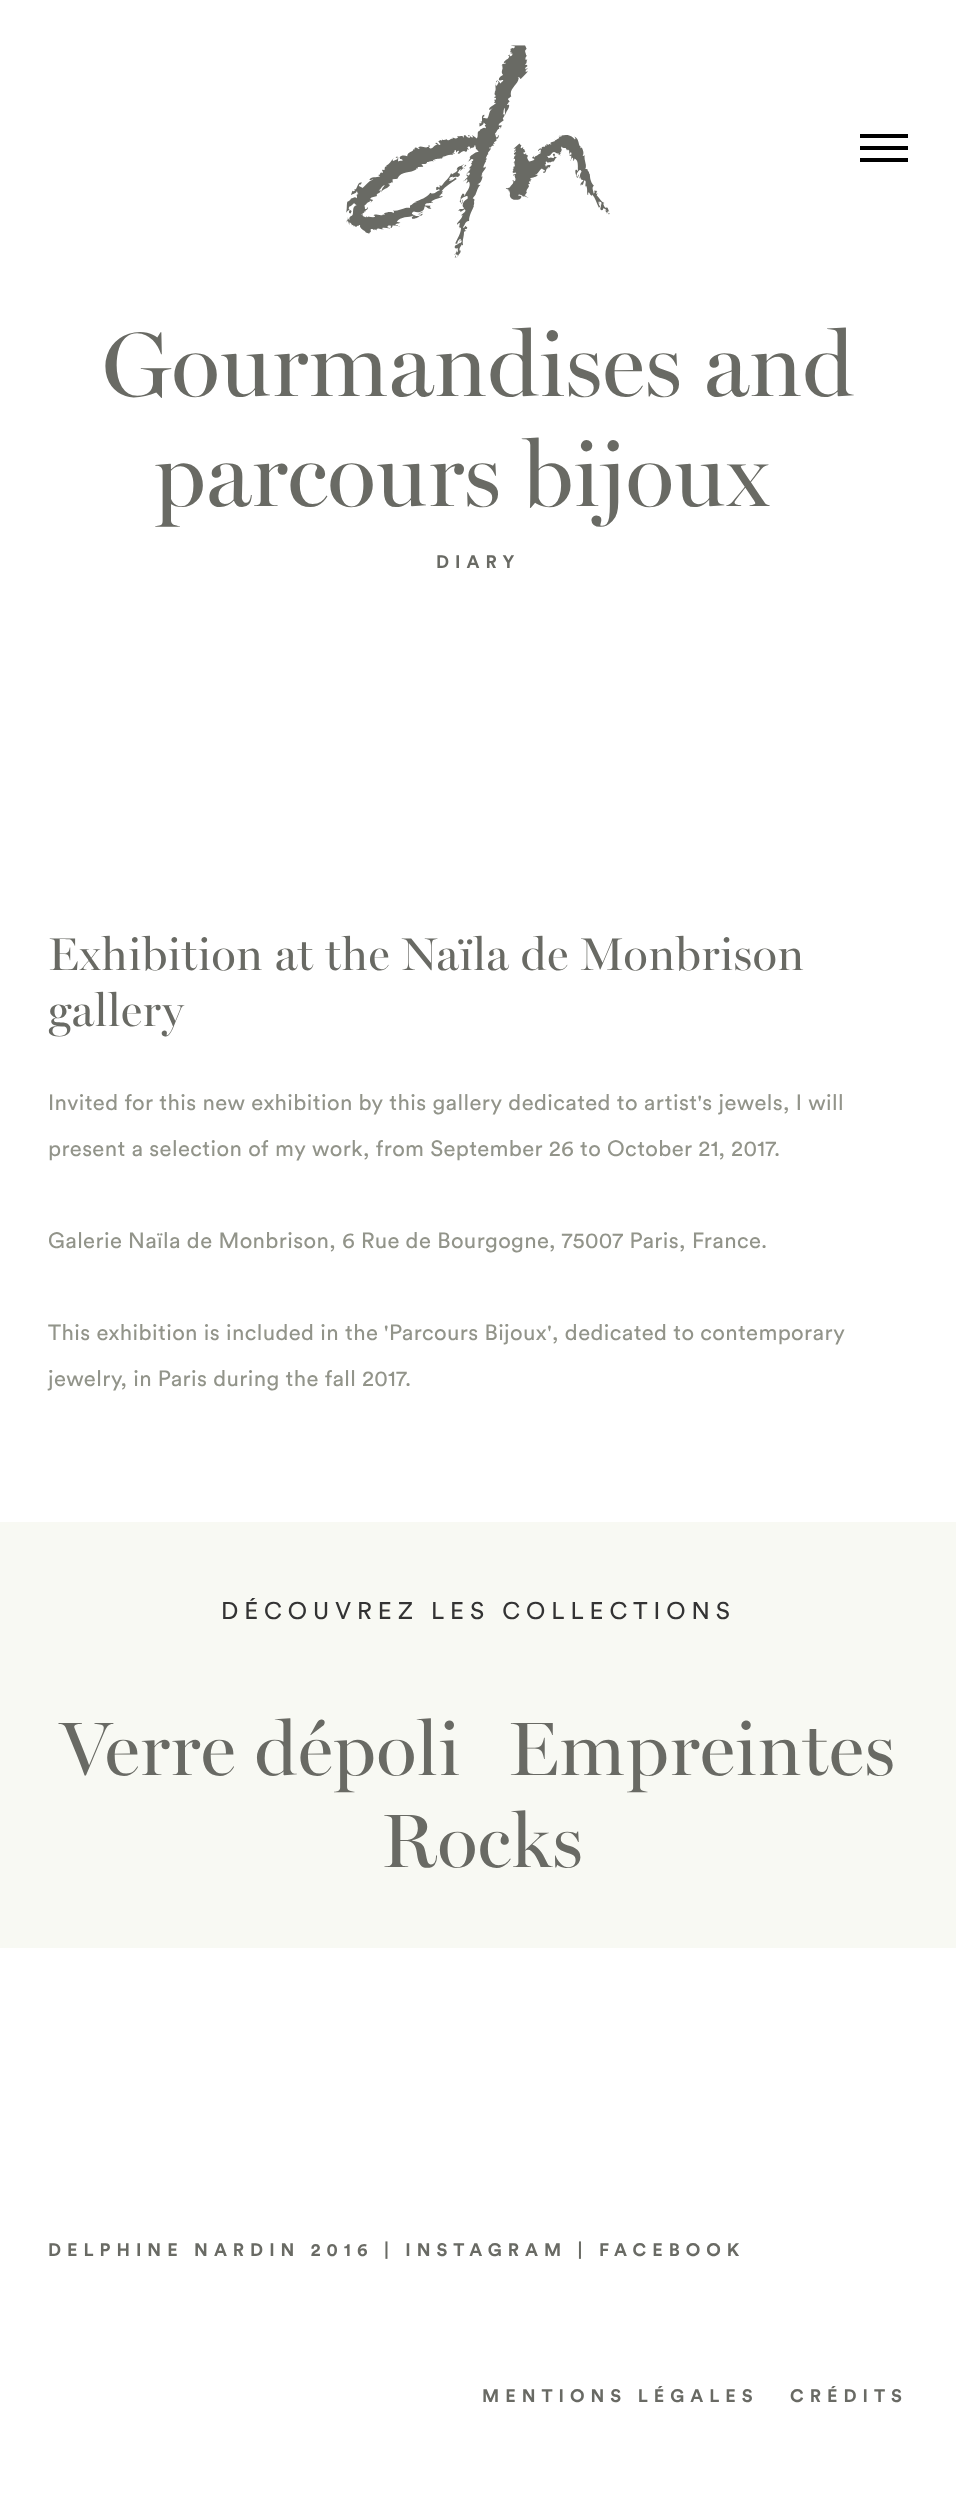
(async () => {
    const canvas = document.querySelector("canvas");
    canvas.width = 956;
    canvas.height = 2498;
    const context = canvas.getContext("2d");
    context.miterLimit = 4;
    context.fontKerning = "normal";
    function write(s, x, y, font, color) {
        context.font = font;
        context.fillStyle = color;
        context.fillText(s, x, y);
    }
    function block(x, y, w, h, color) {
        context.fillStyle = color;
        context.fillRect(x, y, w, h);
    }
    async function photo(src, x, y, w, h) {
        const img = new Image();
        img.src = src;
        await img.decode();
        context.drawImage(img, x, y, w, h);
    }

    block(0, 0, 956, 2498, "rgb(255, 255, 255)");
    await photo("media/1.png", 346, 45, 264, 213);
    block(860, 146, 48, 4, "rgb(0, 0, 0)");
    block(860, 134, 48, 4, "rgb(0, 0, 0)");
    block(860, 158, 48, 4, "rgb(0, 0, 0)");
    write("Gourmandises and", 102, 396, "92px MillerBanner", "rgb(105, 106, 100)");
    write("parcours bijoux", 154, 506, "92px MillerBanner", "rgb(105, 106, 100)");
    context.letterSpacing = "6px";
    write("DIARY", 436, 568, "bold 18px Circular", "rgb(105, 106, 100)");
    context.letterSpacing = "0.5px";
    write("Exhibition at the Naïla de Monbrison", 48, 970, "46px MillerBanner", "rgb(105, 106, 100)");
    write("gallery", 48, 1026, "46px MillerBanner", "rgb(105, 106, 100)");
    context.letterSpacing = "0.4px";
    write("Invited for this new exhibition by this gallery dedicated to artist's jewels, I will", 48, 1110, "22px Circular", "rgb(146, 148, 138)");
    write("present a selection of my work, from September 26 to October 21, 2017.", 48, 1156, "22px Circular", "rgb(146, 148, 138)");
    write("Galerie Naïla de Monbrison, 6 Rue de Bourgogne, 75007 Paris, France.", 48, 1248, "22px Circular", "rgb(146, 148, 138)");
    write("This exhibition is included in the 'Parcours Bijoux', dedicated to contemporary", 48, 1340, "22px Circular", "rgb(146, 148, 138)");
    write("jewelry, in Paris during the fall 2017.", 48, 1386, "22px Circular", "rgb(146, 148, 138)");
    block(0, 1522, 956, 426, "rgb(248, 249, 243)");
    context.letterSpacing = "6px";
    write("DÉCOUVREZ LES COLLECTIONS", 221, 1619, "24px Circular", "rgb(51, 51, 51)");
    context.letterSpacing = "0.5px";
    write("Verre dépoli", 60, 1775, "76px MillerBanner", "rgb(105, 106, 100)");
    write("Empreintes", 508, 1775, "76px MillerBanner", "rgb(105, 106, 100)");
    write("Rocks", 381, 1867, "76px MillerBanner", "rgb(105, 106, 100)");
    context.letterSpacing = "6px";
    write("DELPHINE NARDIN 2016 | INSTAGRAM | FACEBOOK", 48, 2256, "bold 18px Circular", "rgb(105, 106, 100)");
    write("MENTIONS LÉGALES", 482, 2402, "bold 18px Circular", "rgb(105, 106, 100)");
    write("CRÉDITS", 790, 2402, "bold 18px Circular", "rgb(105, 106, 100)");
})();
